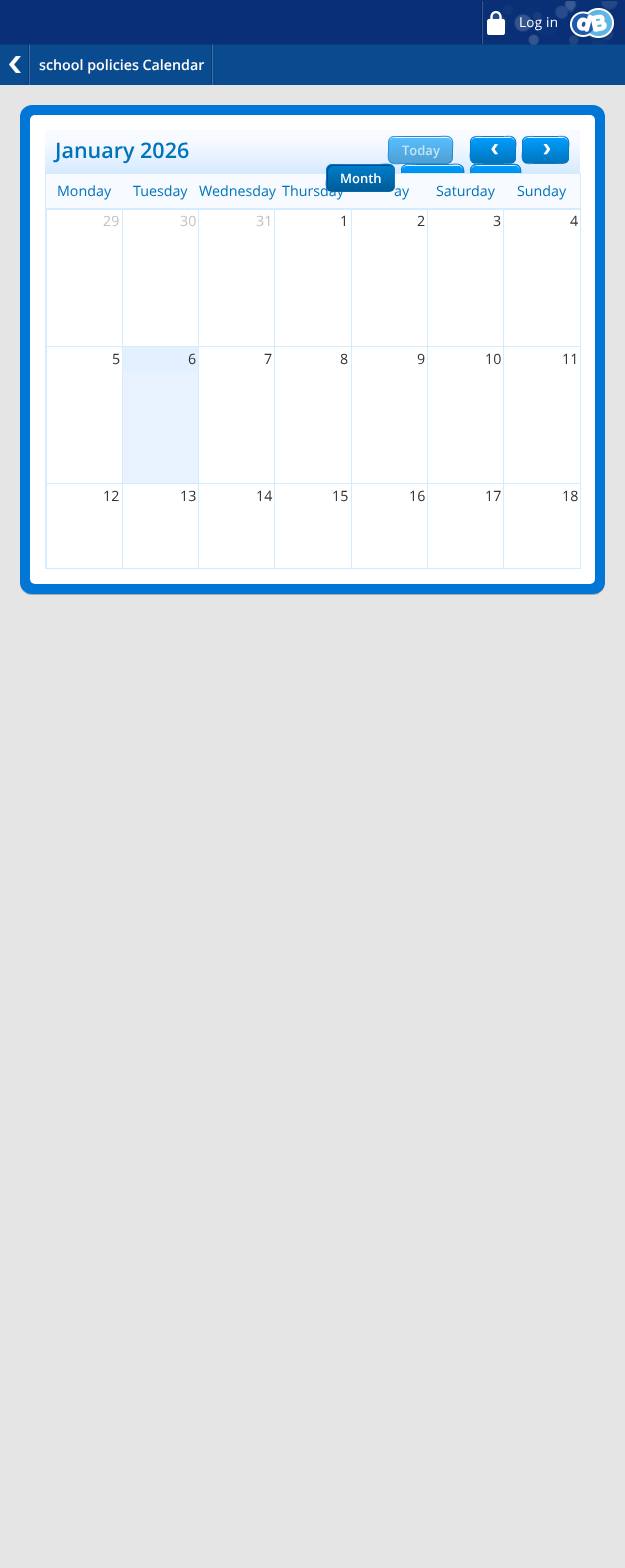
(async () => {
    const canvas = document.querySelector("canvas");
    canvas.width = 625;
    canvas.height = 1568;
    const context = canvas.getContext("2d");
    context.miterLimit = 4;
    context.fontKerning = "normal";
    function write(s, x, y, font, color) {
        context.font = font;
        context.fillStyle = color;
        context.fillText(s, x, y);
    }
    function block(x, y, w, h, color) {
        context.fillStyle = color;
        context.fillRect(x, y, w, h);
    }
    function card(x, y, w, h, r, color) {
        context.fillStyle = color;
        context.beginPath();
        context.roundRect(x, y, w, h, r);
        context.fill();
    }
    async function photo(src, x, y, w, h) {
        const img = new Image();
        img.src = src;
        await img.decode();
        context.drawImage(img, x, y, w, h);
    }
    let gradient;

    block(0, 0, 625, 1568, "rgb(229, 229, 229)");
    block(0, 44, 625, 41, "rgb(10, 75, 143)");
    await photo("media/4.png", 211, 44, 2, 41);
    await photo("media/4.png", 28, 44, 2, 41);
    context.fillStyle = "rgba(0, 0, 0, 0.15)";
    context.filter = "blur(0.5px)";
    context.beginPath();
    context.rect(0, 1, 625, 44);
    context.fill();
    context.filter = "none";
    block(0, 0, 625, 44, "rgb(9, 48, 119)");
    await photo("media/1.png", 487, 1, 131, 44);
    await photo("media/2.png", 481, 1, 2, 43);
    await photo("media/3.png", 487, 11, 18, 24);
    context.letterSpacing = "0.25px";
    write("Log in", 519, 27, "13.5px Open Sans", "rgb(255, 255, 255)");
    context.fillStyle = "rgba(0, 0, 0, 0.25)";
    context.filter = "blur(0.5px)";
    context.beginPath();
    context.roundRect(20, 106, 585, 489, 12);
    context.fill();
    context.filter = "none";
    card(20, 105, 585, 489, 12, "rgb(0, 119, 215)");
    card(30, 115, 565, 469, 5, "rgb(255, 255, 255)");
    await photo("media/5.png", 9, 56, 12, 17);
    context.letterSpacing = "0px";
    write("school policies Calendar", 39, 70, "600 14.25px Open Sans", "rgb(255, 255, 255)");
    gradient = context.createLinearGradient(313, 130, 313, 173);
    gradient.addColorStop(0.25, "rgb(247, 250, 255)");
    gradient.addColorStop(1, "rgb(214, 234, 255)");
    context.fillStyle = gradient;
    context.fillRect(45, 130, 535, 43);
    write("January 2026", 55, 158, "600 21.5px Open Sans", "rgb(0, 116, 186)");
    context.save();
    context.beginPath();
    context.roundRect(388, 136, 65, 28, 6);
    context.clip();
    gradient = context.createLinearGradient(421, 111, 421, 137);
    gradient.addColorStop(0, "rgb(86, 190, 255)");
    gradient.addColorStop(1, "rgb(86, 164, 211)");
    context.fillStyle = gradient;
    context.fillRect(388, 136, 65, 1);
    gradient = context.createLinearGradient(421, 137, 421, 163);
    gradient.addColorStop(0, "rgba(0, 158, 255, 0.65)");
    gradient.addColorStop(1, "rgba(0, 117, 188, 0.65)");
    context.fillStyle = gradient;
    context.fillRect(388, 137, 65, 26);
    gradient = context.createLinearGradient(421, 163, 421, 189);
    gradient.addColorStop(0, "rgb(78, 186, 255)");
    gradient.addColorStop(1, "rgb(78, 160, 211)");
    context.fillStyle = gradient;
    context.fillRect(388, 163, 65, 1);
    context.restore();
    context.fillStyle = "rgb(236, 247, 255)";
    context.beginPath();
    context.moveTo(394, 138);
    context.lineTo(447, 138);
    context.bezierCurveTo(450, 138, 452, 140, 452, 143);
    context.bezierCurveTo(452, 135, 444, 137, 438, 137);
    context.lineTo(403, 137);
    context.bezierCurveTo(397, 137, 389, 135, 389, 143);
    context.bezierCurveTo(389, 140, 391, 138, 394, 138);
    context.closePath();
    context.fill();
    context.beginPath();
    context.moveTo(451, 138);
    context.bezierCurveTo(454, 141, 452.5, 146.5, 452.5, 150);
    context.bezierCurveTo(452.5, 164, 452.5, 163.5, 438, 163.5);
    context.lineTo(403, 163.5);
    context.bezierCurveTo(400, 163.5, 393, 165, 390, 162);
    context.strokeStyle = "rgba(15, 119, 183, 0.65)";
    context.stroke();
    context.beginPath();
    context.moveTo(390, 162);
    context.bezierCurveTo(387, 159, 388.5, 153.5, 388.5, 150);
    context.bezierCurveTo(388.5, 136, 388.5, 136.5, 403, 136.5);
    context.lineTo(438, 136.5);
    context.bezierCurveTo(441, 136.5, 448, 135, 451, 138);
    context.strokeStyle = "rgba(5, 124, 220, 0.65)";
    context.stroke();
    write("Today", 402, 155, "600 13px Open Sans", "rgb(195, 227, 247)");
    context.save();
    context.beginPath();
    context.roundRect(470, 136, 46, 28, 6);
    context.clip();
    gradient = context.createLinearGradient(493, 137, 493, 163);
    gradient.addColorStop(0, "rgb(0, 158, 255)");
    gradient.addColorStop(1, "rgb(0, 117, 188)");
    context.fillStyle = gradient;
    context.fillRect(470, 137, 46, 26);
    context.restore();
    context.fillStyle = "rgb(230, 245, 255)";
    context.beginPath();
    context.moveTo(476, 138);
    context.lineTo(510, 138);
    context.bezierCurveTo(513, 138, 515, 140, 515, 143);
    context.bezierCurveTo(515, 136, 510, 137, 504, 137);
    context.lineTo(482, 137);
    context.bezierCurveTo(476, 137, 471, 136, 471, 143);
    context.bezierCurveTo(471, 140, 473, 138, 476, 138);
    context.closePath();
    context.fill();
    context.beginPath();
    context.moveTo(514, 138);
    context.bezierCurveTo(517, 141, 515.5, 146.5, 515.5, 150);
    context.lineTo(515.5, 159);
    context.bezierCurveTo(514.5, 164.5, 508.5, 163.5, 504.5, 163.5);
    context.lineTo(481.5, 163.5);
    context.bezierCurveTo(478.5, 163.5, 474.5, 164.5, 472, 162);
    context.strokeStyle = "rgb(15, 119, 183)";
    context.stroke();
    context.beginPath();
    context.moveTo(472, 162);
    context.bezierCurveTo(469, 159, 470.5, 153.5, 470.5, 150);
    context.lineTo(470.5, 141);
    context.bezierCurveTo(471.5, 135.5, 477.5, 136.5, 481.5, 136.5);
    context.lineTo(504.5, 136.5);
    context.bezierCurveTo(507.5, 136.5, 511.5, 135.5, 514, 138);
    context.strokeStyle = "rgb(5, 124, 220)";
    context.stroke();
    context.save();
    context.beginPath();
    context.rect(487, 144, 13, 13);
    context.clip();
    write("‹", 487, 156, "bold 26px Liberation Mono", "rgb(255, 255, 255)");
    context.restore();
    context.save();
    context.beginPath();
    context.roundRect(522, 136, 47, 28, 6);
    context.clip();
    gradient = context.createLinearGradient(546, 137, 546, 163);
    gradient.addColorStop(0, "rgb(0, 158, 255)");
    gradient.addColorStop(1, "rgb(0, 117, 188)");
    context.fillStyle = gradient;
    context.fillRect(522, 137, 47, 26);
    context.restore();
    context.beginPath();
    context.moveTo(528, 138);
    context.lineTo(563, 138);
    context.bezierCurveTo(566, 138, 568, 140, 568, 143);
    context.bezierCurveTo(568, 136, 563, 137, 557, 137);
    context.lineTo(534, 137);
    context.bezierCurveTo(528, 137, 523, 136, 523, 143);
    context.bezierCurveTo(523, 140, 525, 138, 528, 138);
    context.closePath();
    context.fill();
    context.beginPath();
    context.moveTo(567, 138);
    context.bezierCurveTo(570, 141, 568.5, 146.5, 568.5, 150);
    context.lineTo(568.5, 159);
    context.bezierCurveTo(567.5, 164.5, 561, 163.5, 557, 163.5);
    context.lineTo(534, 163.5);
    context.bezierCurveTo(531, 163.5, 526.5, 164.5, 524, 162);
    context.strokeStyle = "rgb(15, 119, 183)";
    context.stroke();
    context.beginPath();
    context.moveTo(524, 162);
    context.bezierCurveTo(521, 159, 522.5, 153.5, 522.5, 150);
    context.lineTo(522.5, 141);
    context.bezierCurveTo(523.5, 135.5, 530, 136.5, 534, 136.5);
    context.lineTo(557, 136.5);
    context.bezierCurveTo(560, 136.5, 564.5, 135.5, 567, 138);
    context.strokeStyle = "rgb(5, 124, 220)";
    context.stroke();
    context.save();
    context.beginPath();
    context.rect(539, 144, 13, 13);
    context.clip();
    write("›", 539, 156, "bold 26px Liberation Mono", "rgb(255, 255, 255)");
    context.restore();
    context.save();
    context.beginPath();
    context.roundRect(326, 164, 69, 28, 6);
    context.clip();
    gradient = context.createLinearGradient(361, 139, 361, 165);
    gradient.addColorStop(0, "rgb(0, 126, 204)");
    gradient.addColorStop(1, "rgb(0, 92, 150)");
    context.fillStyle = gradient;
    context.fillRect(326, 164, 69, 1);
    context.restore();
    context.save();
    context.beginPath();
    context.roundRect(401, 164, 63, 28, 6);
    context.clip();
    gradient = context.createLinearGradient(433, 165, 433, 191);
    gradient.addColorStop(0, "rgb(0, 158, 255)");
    gradient.addColorStop(1, "rgb(0, 117, 188)");
    context.fillStyle = gradient;
    context.fillRect(401, 165, 63, 8);
    context.restore();
    context.beginPath();
    context.moveTo(407, 166);
    context.lineTo(458, 166);
    context.bezierCurveTo(461, 166, 463, 168, 463, 171);
    context.bezierCurveTo(463, 163, 455, 165, 450, 165);
    context.lineTo(416, 165);
    context.bezierCurveTo(410, 165, 402, 163, 402, 171);
    context.bezierCurveTo(402, 168, 404, 166, 407, 166);
    context.closePath();
    context.fill();
    context.beginPath();
    context.moveTo(462, 166);
    context.bezierCurveTo(465, 169, 463.5, 174.5, 463.5, 178);
    context.lineTo(463.5, 187);
    context.bezierCurveTo(462, 193.5, 453.5, 191.5, 449.5, 191.5);
    context.lineTo(415.5, 191.5);
    context.bezierCurveTo(412.5, 191.5, 406, 193, 403, 190);
    context.strokeStyle = "rgb(15, 119, 183)";
    context.stroke();
    context.beginPath();
    context.moveTo(403, 190);
    context.bezierCurveTo(400, 187, 401.5, 181.5, 401.5, 178);
    context.lineTo(401.5, 169);
    context.bezierCurveTo(403, 162.5, 411.5, 164.5, 415.5, 164.5);
    context.lineTo(449.5, 164.5);
    context.bezierCurveTo(452.5, 164.5, 459, 163, 462, 166);
    context.strokeStyle = "rgb(5, 124, 220)";
    context.stroke();
    context.save();
    context.beginPath();
    context.roundRect(470, 164, 51, 28, 6);
    context.clip();
    gradient = context.createLinearGradient(496, 165, 496, 191);
    gradient.addColorStop(0, "rgb(0, 158, 255)");
    gradient.addColorStop(1, "rgb(0, 117, 188)");
    context.fillStyle = gradient;
    context.fillRect(470, 165, 51, 8);
    gradient = context.createLinearGradient(496, 139, 496, 165);
    gradient.addColorStop(0, "rgb(0, 158, 255)");
    gradient.addColorStop(1, "rgb(0, 117, 188)");
    context.fillStyle = gradient;
    context.fillRect(470, 164, 51, 1);
    context.restore();
    context.beginPath();
    context.moveTo(476, 166);
    context.lineTo(515, 166);
    context.bezierCurveTo(518, 166, 520, 168, 520, 171);
    context.bezierCurveTo(520, 164, 514, 165, 508, 165);
    context.lineTo(482, 165);
    context.bezierCurveTo(477, 165, 471, 164, 471, 171);
    context.bezierCurveTo(471, 168, 473, 166, 476, 166);
    context.closePath();
    context.fill();
    context.beginPath();
    context.moveTo(519, 166);
    context.bezierCurveTo(522, 169, 520.5, 174.5, 520.5, 178);
    context.bezierCurveTo(520.5, 190.5, 521.5, 191.5, 508.5, 191.5);
    context.lineTo(482.5, 191.5);
    context.bezierCurveTo(479.5, 191.5, 474.5, 192.5, 472, 190);
    context.strokeStyle = "rgb(15, 119, 183)";
    context.stroke();
    context.beginPath();
    context.moveTo(472, 190);
    context.bezierCurveTo(469, 187, 470.5, 181.5, 470.5, 178);
    context.bezierCurveTo(470.5, 165.5, 469.5, 164.5, 482.5, 164.5);
    context.lineTo(508.5, 164.5);
    context.bezierCurveTo(511.5, 164.5, 516.5, 163.5, 519, 166);
    context.strokeStyle = "rgb(5, 124, 220)";
    context.stroke();
    block(46, 174, 534, 34, "rgb(247, 250, 255)");
    block(45, 173, 536, 1, "rgb(211, 237, 254)");
    write("Thursday", 282, 196, "14.25px Open Sans", "rgb(0, 116, 186)");
    context.save();
    context.beginPath();
    context.roundRect(326, 164, 69, 28, 6);
    context.clip();
    gradient = context.createLinearGradient(361, 165, 361, 191);
    gradient.addColorStop(0, "rgb(0, 126, 204)");
    gradient.addColorStop(1, "rgb(0, 92, 150)");
    context.fillStyle = gradient;
    context.fillRect(326, 165, 69, 26);
    context.restore();
    context.fillStyle = "rgb(0, 75, 129)";
    context.beginPath();
    context.moveTo(333, 166);
    context.lineTo(390, 166);
    context.lineTo(393, 167);
    context.bezierCurveTo(392, 166, 390, 165, 389, 165);
    context.lineTo(332, 165);
    context.bezierCurveTo(329, 165, 327, 167, 327, 170);
    context.lineTo(327, 186);
    context.bezierCurveTo(327, 187, 328, 189, 329, 190);
    context.bezierCurveTo(327, 187, 328, 182, 328, 179);
    context.bezierCurveTo(328, 175, 326, 166, 333, 166);
    context.closePath();
    context.fill();
    context.beginPath();
    context.moveTo(393, 166);
    context.bezierCurveTo(394, 167, 394.5, 168.5, 394.5, 170);
    context.lineTo(394.5, 186);
    context.bezierCurveTo(394.5, 187.5, 394, 189, 393, 190);
    context.strokeStyle = "rgb(15, 119, 183)";
    context.stroke();
    context.beginPath();
    context.moveTo(393, 190);
    context.bezierCurveTo(392, 191, 390.5, 191.5, 389, 191.5);
    context.lineTo(332, 191.5);
    context.bezierCurveTo(330.5, 191.5, 329, 191, 328, 190);
    context.strokeStyle = "rgb(0, 108, 174)";
    context.stroke();
    context.beginPath();
    context.moveTo(328, 190);
    context.bezierCurveTo(325, 187, 326.5, 181.5, 326.5, 178);
    context.bezierCurveTo(326.5, 163.5, 326.5, 164.5, 341.5, 164.5);
    context.lineTo(379.5, 164.5);
    context.bezierCurveTo(382, 164.5, 390, 163, 393, 166);
    context.strokeStyle = "rgb(5, 124, 220)";
    context.stroke();
    write("Month", 340, 183, "600 13px Open Sans", "rgb(255, 255, 255)");
    block(45, 208, 536, 1, "rgb(211, 237, 254)");
    block(580, 208, 1, 361, "rgb(211, 237, 254)");
    block(580, 173, 1, 36, "rgb(211, 237, 254)");
    block(45, 568, 536, 1, "rgb(211, 237, 254)");
    block(45, 208, 1, 361, "rgb(211, 237, 254)");
    block(45, 173, 1, 36, "rgb(211, 237, 254)");
    write("Monday", 57, 196, "14.25px Open Sans", "rgb(0, 116, 186)");
    write("Tuesday", 133, 196, "14.25px Open Sans", "rgb(0, 116, 186)");
    write("Wednesday", 199, 196, "14.25px Open Sans", "rgb(0, 116, 186)");
    write("ay", 394, 196, "14.25px Open Sans", "rgb(0, 116, 186)");
    write("Saturday", 436, 196, "14.25px Open Sans", "rgb(0, 116, 186)");
    write("Sunday", 517, 196, "14.25px Open Sans", "rgb(0, 116, 186)");
    block(503, 209, 77, 1, "rgb(211, 237, 254)");
    block(503, 346, 77, 1, "rgb(211, 237, 254)");
    block(503, 209, 1, 138, "rgb(211, 237, 254)");
    block(427, 209, 77, 1, "rgb(211, 237, 254)");
    block(427, 346, 77, 1, "rgb(211, 237, 254)");
    block(427, 209, 1, 138, "rgb(211, 237, 254)");
    block(351, 209, 77, 1, "rgb(211, 237, 254)");
    block(351, 346, 77, 1, "rgb(211, 237, 254)");
    block(351, 209, 1, 138, "rgb(211, 237, 254)");
    block(274, 209, 78, 1, "rgb(211, 237, 254)");
    block(274, 346, 78, 1, "rgb(211, 237, 254)");
    block(274, 209, 1, 138, "rgb(211, 237, 254)");
    block(198, 209, 77, 1, "rgb(211, 237, 254)");
    block(198, 346, 77, 1, "rgb(211, 237, 254)");
    block(198, 209, 1, 138, "rgb(211, 237, 254)");
    block(122, 209, 77, 1, "rgb(211, 237, 254)");
    block(122, 346, 77, 1, "rgb(211, 237, 254)");
    block(122, 209, 1, 138, "rgb(211, 237, 254)");
    block(46, 209, 77, 1, "rgb(211, 237, 254)");
    block(46, 346, 77, 1, "rgb(211, 237, 254)");
    block(46, 209, 1, 138, "rgb(211, 237, 254)");
    write("29", 103, 226, "14.25px Open Sans", "rgb(194, 194, 194)");
    write("30", 180, 226, "14.25px Open Sans", "rgb(194, 194, 194)");
    write("31", 256, 226, "14.25px Open Sans", "rgb(194, 194, 194)");
    write("1", 340, 226, "14.25px Open Sans", "rgb(51, 51, 51)");
    write("2", 417, 226, "14.25px Open Sans", "rgb(51, 51, 51)");
    write("3", 493, 226, "14.25px Open Sans", "rgb(51, 51, 51)");
    write("4", 570, 226, "14.25px Open Sans", "rgb(51, 51, 51)");
    block(503, 483, 77, 1, "rgb(211, 237, 254)");
    block(503, 346, 1, 138, "rgb(211, 237, 254)");
    block(427, 483, 77, 1, "rgb(211, 237, 254)");
    block(427, 346, 1, 138, "rgb(211, 237, 254)");
    block(351, 483, 77, 1, "rgb(211, 237, 254)");
    block(351, 346, 1, 138, "rgb(211, 237, 254)");
    block(274, 483, 78, 1, "rgb(211, 237, 254)");
    block(274, 346, 1, 138, "rgb(211, 237, 254)");
    block(198, 483, 77, 1, "rgb(211, 237, 254)");
    block(198, 346, 1, 138, "rgb(211, 237, 254)");
    block(122, 483, 77, 1, "rgb(211, 237, 254)");
    block(122, 346, 1, 138, "rgb(211, 237, 254)");
    block(46, 483, 77, 1, "rgb(211, 237, 254)");
    block(46, 346, 1, 222, "rgb(211, 237, 254)");
    block(123, 373, 75, 110, "rgb(233, 243, 255)");
    block(123, 347, 75, 26, "rgb(226, 240, 255)");
    block(122, 347, 1, 26, "rgb(219, 238, 255)");
    block(198, 347, 1, 26, "rgb(219, 238, 255)");
    write("5", 112, 364, "14.25px Open Sans", "rgb(51, 51, 51)");
    write("6", 188, 364, "14.25px Open Sans", "rgb(51, 51, 51)");
    write("7", 264, 364, "14.25px Open Sans", "rgb(51, 51, 51)");
    write("8", 340, 364, "14.25px Open Sans", "rgb(51, 51, 51)");
    write("9", 417, 364, "14.25px Open Sans", "rgb(51, 51, 51)");
    write("10", 485, 364, "14.25px Open Sans", "rgb(51, 51, 51)");
    write("11", 562, 364, "14.25px Open Sans", "rgb(51, 51, 51)");
    block(122, 483, 1, 85, "rgb(211, 237, 254)");
    block(198, 483, 1, 85, "rgb(211, 237, 254)");
    block(274, 483, 1, 85, "rgb(211, 237, 254)");
    block(351, 483, 1, 85, "rgb(211, 237, 254)");
    block(427, 483, 1, 85, "rgb(211, 237, 254)");
    block(503, 483, 1, 85, "rgb(211, 237, 254)");
    write("12", 103, 501, "14.25px Open Sans", "rgb(51, 51, 51)");
    write("13", 180, 501, "14.25px Open Sans", "rgb(51, 51, 51)");
    write("14", 256, 501, "14.25px Open Sans", "rgb(51, 51, 51)");
    write("15", 332, 501, "14.25px Open Sans", "rgb(51, 51, 51)");
    write("16", 409, 501, "14.25px Open Sans", "rgb(51, 51, 51)");
    write("17", 485, 501, "14.25px Open Sans", "rgb(51, 51, 51)");
    write("18", 562, 501, "14.25px Open Sans", "rgb(51, 51, 51)");
})();
